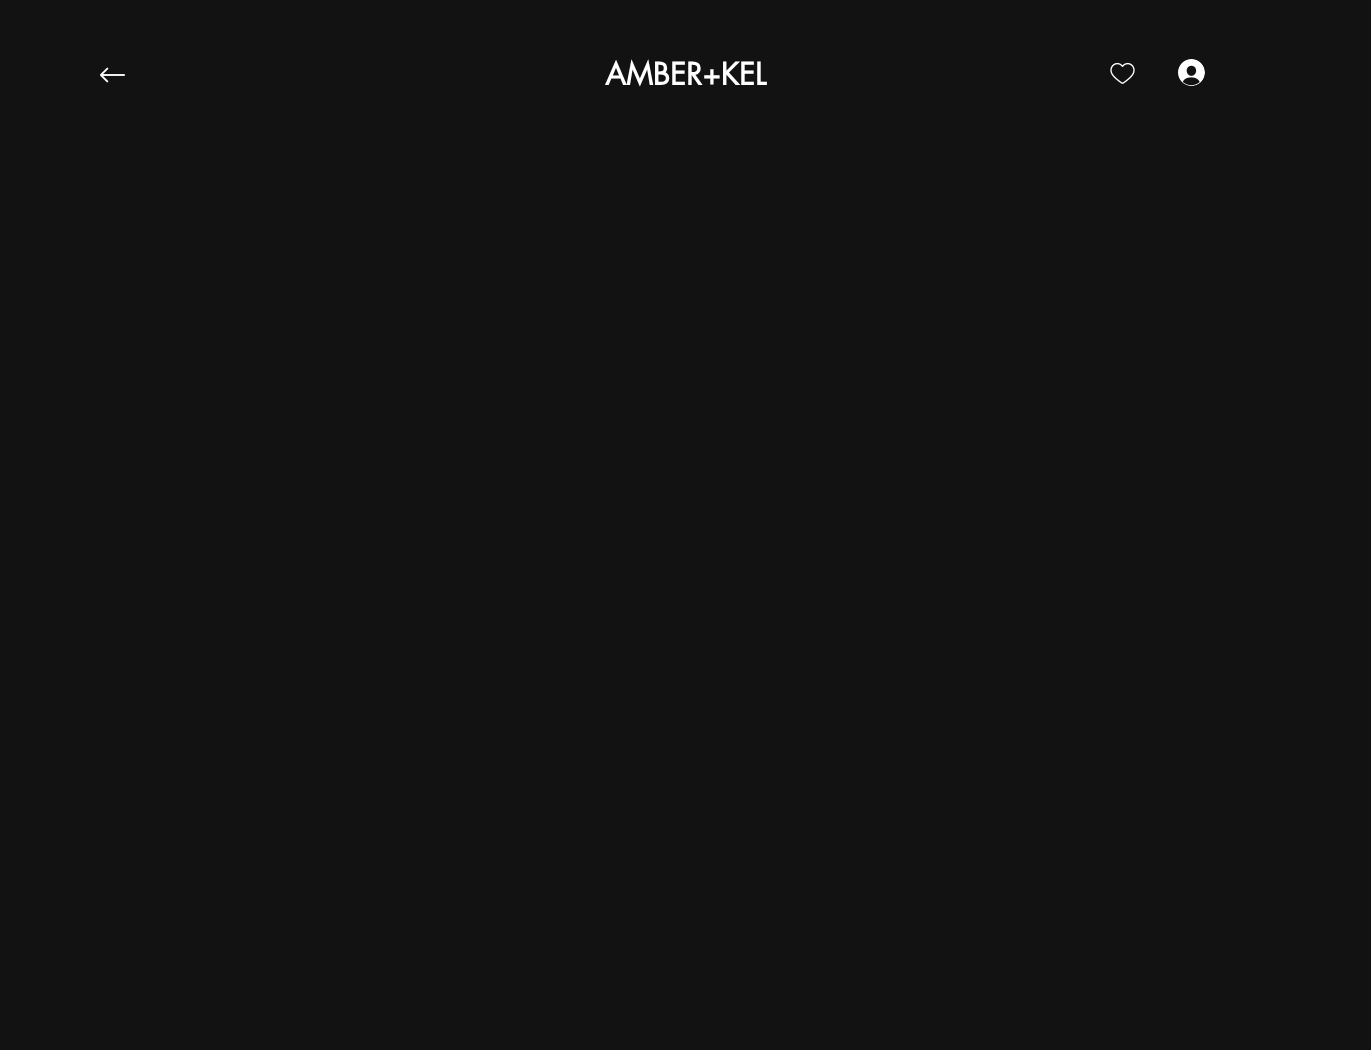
(async () => {
    const canvas = document.querySelector("canvas");
    canvas.width = 1371;
    canvas.height = 1050;
    const context = canvas.getContext("2d");
    context.miterLimit = 4;
    context.fontKerning = "normal";
    function write(s, x, y, font, color) {
        context.font = font;
        context.fillStyle = color;
        context.fillText(s, x, y);
    }
    function block(x, y, w, h, color) {
        context.fillStyle = color;
        context.fillRect(x, y, w, h);
    }
    async function photo(src, x, y, w, h) {
        const img = new Image();
        img.src = src;
        await img.decode();
        context.drawImage(img, x, y, w, h);
    }

    block(0, 0, 1371, 1050, "rgb(18, 18, 18)");
    await photo("media/1.png", 100, 67, 25, 16);
    write("AMBER+KEL", 605, 85, "bold 30px futura", "rgb(255, 255, 255)");
    await photo("media/2.png", 1110, 62, 25, 22);
    await photo("media/3.png", 1178, 59, 27, 27);
})();
